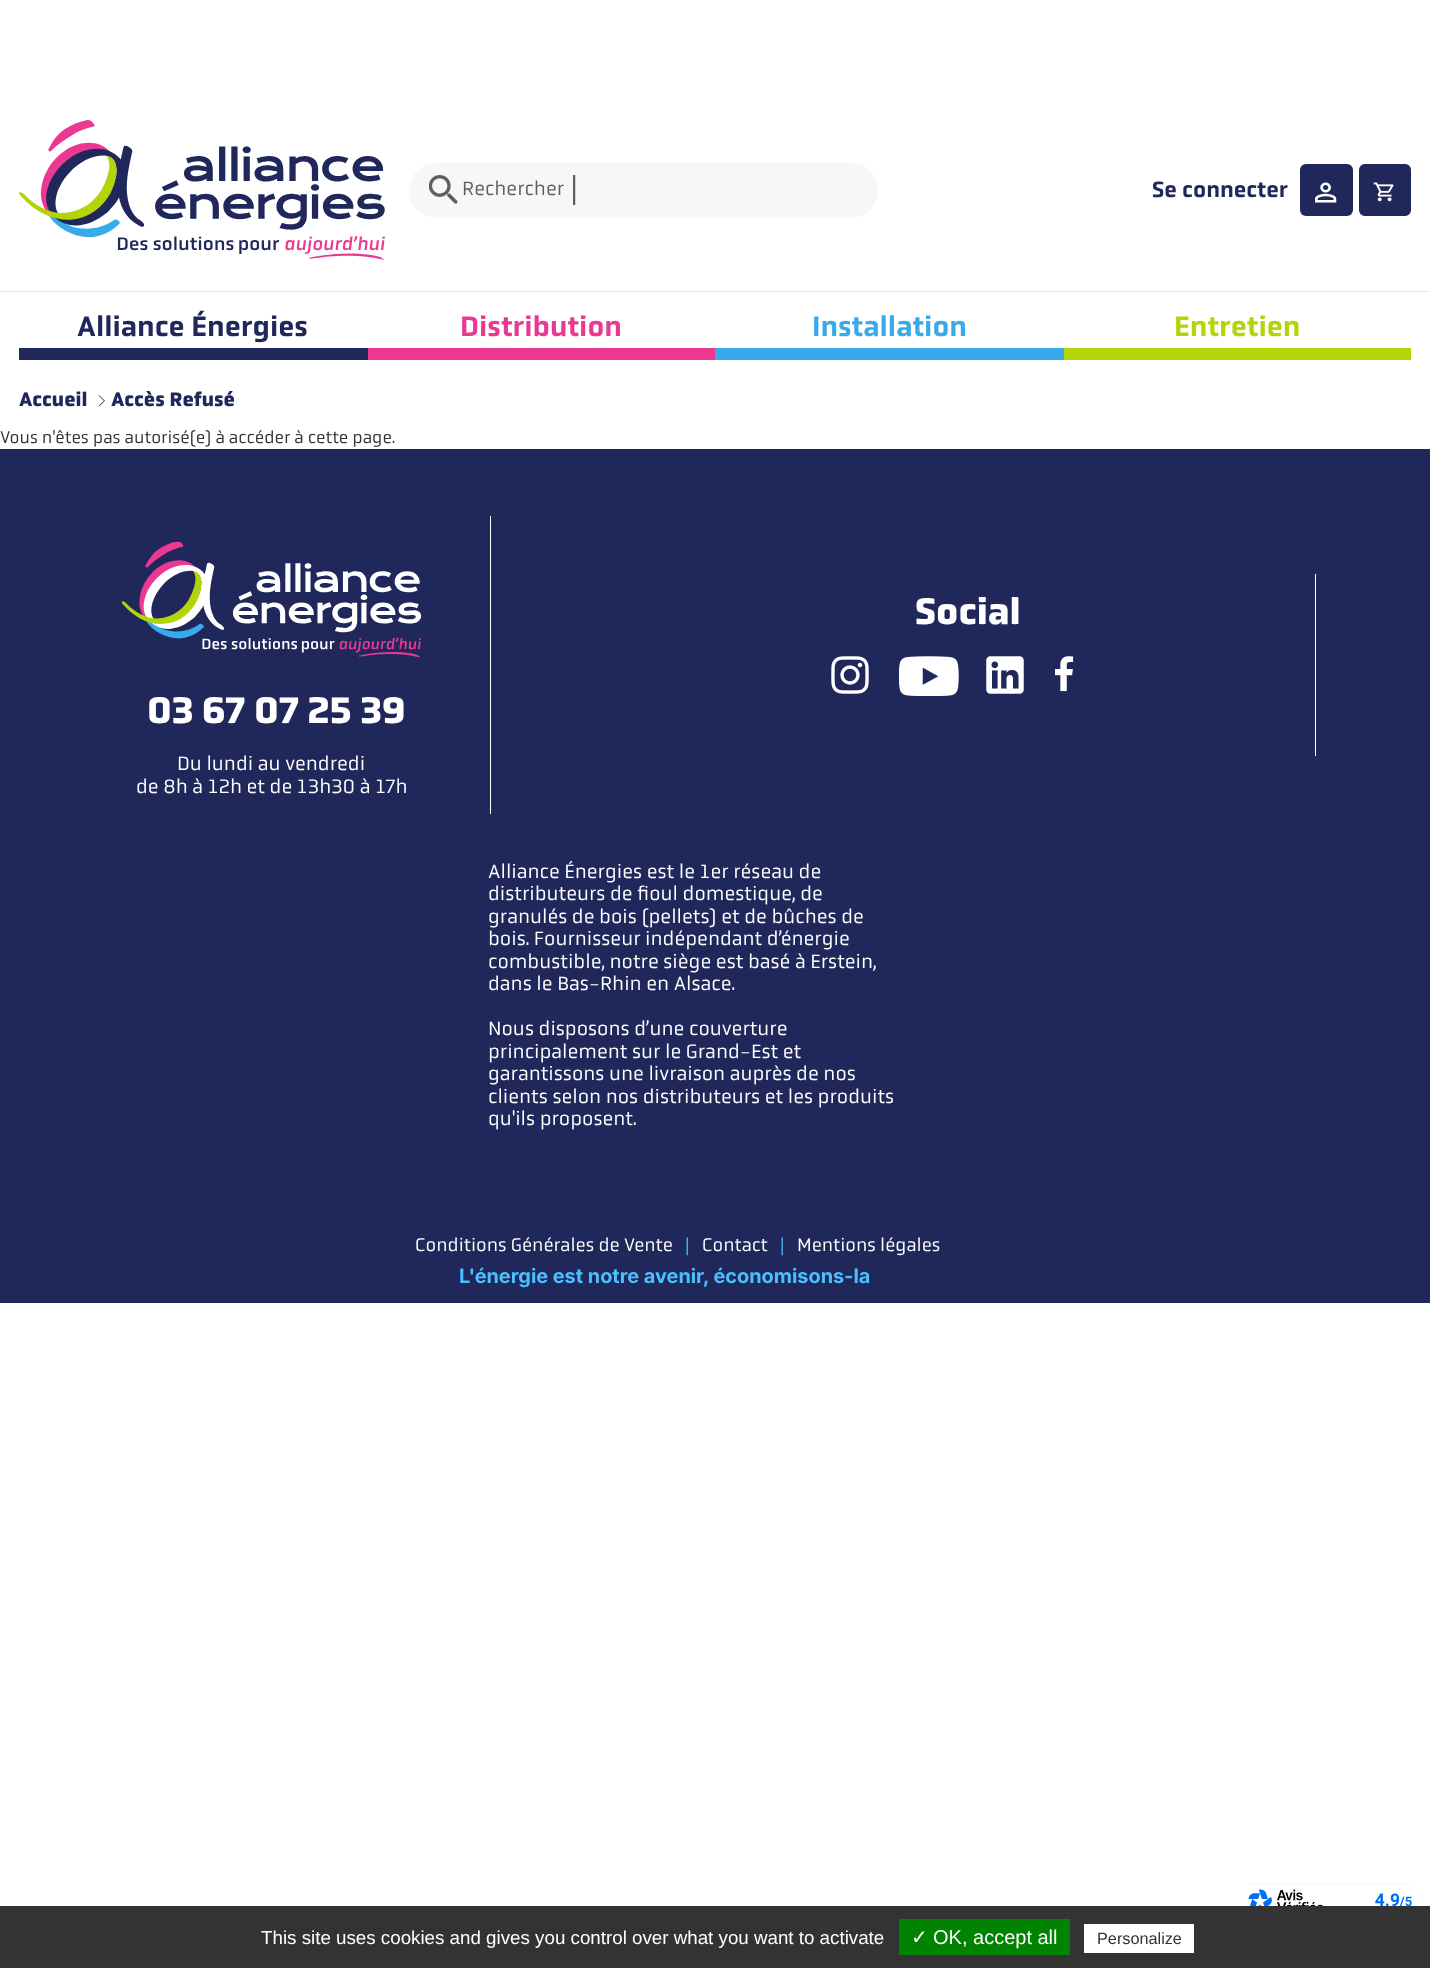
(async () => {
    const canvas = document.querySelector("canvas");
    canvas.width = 1430;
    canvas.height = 1968;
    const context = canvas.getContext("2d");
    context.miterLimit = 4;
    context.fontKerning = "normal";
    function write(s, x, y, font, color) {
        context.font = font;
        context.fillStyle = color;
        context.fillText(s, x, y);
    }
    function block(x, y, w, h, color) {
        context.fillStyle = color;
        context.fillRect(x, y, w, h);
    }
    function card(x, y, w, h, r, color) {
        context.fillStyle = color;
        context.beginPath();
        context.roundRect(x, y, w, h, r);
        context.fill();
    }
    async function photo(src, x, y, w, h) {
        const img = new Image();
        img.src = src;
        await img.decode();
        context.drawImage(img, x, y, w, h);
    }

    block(0, 0, 1430, 1968, "rgb(255, 255, 255)");
    block(0, 291, 1430, 1, "rgb(223, 235, 239)");
    await photo("media/1.png", 19, 120, 366, 140);
    card(409, 163, 469, 55, 27.5, "rgb(247, 247, 247)");
    await photo("media/2.png", 429, 175, 29, 29);
    write("Rechercher", 462, 195, "20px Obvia", "rgb(95, 95, 95)");
    context.save();
    context.beginPath();
    context.rect(573, 175, 3, 30);
    context.clip();
    context.beginPath();
    context.moveTo(574, 175);
    context.lineTo(574, 205);
    context.strokeStyle = "rgb(95, 95, 95)";
    context.lineWidth = 2.5;
    context.stroke();
    context.restore();
    write("Se connecter", 1152, 197, "500 22.5px Obvia", "rgb(32, 40, 91)");
    card(1300, 164, 53, 52, 6, "rgb(32, 40, 91)");
    await photo("media/3.png", 1315, 182, 22, 21);
    await photo("media/4.png", 1359, 164, 52, 52);
    write("Alliance Énergies", 77, 336, "500 28.75px Obvia", "rgb(32, 40, 91)");
    block(19, 348, 349, 12, "rgb(32, 40, 91)");
    write("Distribution", 460, 336, "500 28.75px Obvia", "rgb(235, 57, 145)");
    block(368, 348, 347, 12, "rgb(235, 57, 145)");
    write("Installation", 812, 336, "500 28.75px Obvia", "rgb(55, 170, 235)");
    block(715, 348, 349, 12, "rgb(55, 170, 235)");
    write("Entretien", 1174, 336, "500 28.75px Obvia", "rgb(179, 212, 6)");
    block(1064, 348, 347, 12, "rgb(179, 212, 6)");
    write("Accueil", 19, 406, "bold 20px Obvia", "rgb(32, 40, 91)");
    context.beginPath();
    context.moveTo(99, 395.5);
    context.lineTo(104.5, 401);
    context.lineTo(99, 406);
    context.strokeStyle = "rgb(32, 40, 91)";
    context.stroke();
    write("Accès Refusé", 111, 406, "bold 20px Obvia", "rgb(32, 40, 91)");
    write("Vous n'êtes pas autorisé(e) à accéder à cette page.", 0, 443, "17.5px Obvia", "rgb(50, 50, 50)");
    block(0, 449, 1430, 854, "rgb(32, 40, 91)");
    write("Social", 915, 624, "bold 37.5px Obvia", "rgb(255, 255, 255)");
    await photo("media/5.png", 831, 656, 38, 38);
    await photo("media/6.png", 899, 656, 60, 40);
    await photo("media/7.png", 986, 656, 38, 38);
    await photo("media/8.png", 1055, 656, 19, 36);
    block(1315, 574, 1, 182, "rgb(255, 255, 255)");
    await photo("media/9.png", 121, 541, 300, 117);
    write("03 67 07 25 39", 147, 723, "bold 37.5px Obvia", "rgb(255, 255, 255)");
    write("Du lundi au vendredi", 177, 770, "20px Obvia", "rgb(255, 255, 255)");
    write("de 8h à 12h et de 13h30 à 17h", 136, 793, "20px Obvia", "rgb(255, 255, 255)");
    block(490, 516, 1, 298, "rgb(255, 255, 255)");
    write("Alliance Énergies est le 1er réseau de", 488, 878, "20px Obvia", "rgb(255, 255, 255)");
    write("distributeurs de fioul domestique, de", 488, 900, "20px Obvia", "rgb(255, 255, 255)");
    write("granulés de bois (pellets) et de bûches de", 488, 923, "20px Obvia", "rgb(255, 255, 255)");
    write("bois. Fournisseur indépendant d’énergie", 488, 945, "20px Obvia", "rgb(255, 255, 255)");
    write("combustible, notre siège est basé à Erstein,", 488, 968, "20px Obvia", "rgb(255, 255, 255)");
    write("dans le Bas-Rhin en Alsace.", 488, 990, "20px Obvia", "rgb(255, 255, 255)");
    write("Nous disposons d’une couverture", 488, 1035, "20px Obvia", "rgb(255, 255, 255)");
    write("principalement sur le Grand-Est et", 488, 1058, "20px Obvia", "rgb(255, 255, 255)");
    write("garantissons une livraison auprès de nos", 488, 1080, "20px Obvia", "rgb(255, 255, 255)");
    write("clients selon nos distributeurs et les produits", 488, 1103, "20px Obvia", "rgb(255, 255, 255)");
    write("qu'ils proposent.", 488, 1125, "20px Obvia", "rgb(255, 255, 255)");
    write("Conditions Générales de Vente", 415, 1251, "18.75px Obvia", "rgb(255, 255, 255)");
    write("|", 685, 1251, "17.5px Obvia", "rgb(74, 192, 253)");
    write("Contact", 702, 1251, "18.75px Obvia", "rgb(255, 255, 255)");
    write("|", 780, 1251, "17.5px Obvia", "rgb(74, 192, 253)");
    write("Mentions légales", 797, 1251, "18.75px Obvia", "rgb(255, 255, 255)");
    await photo("media/10.png", 1247, 1884, 171, 22);
    write("L'énergie est notre avenir, économisons-la", 459, 1283, "bold 20px Inter", "rgb(74, 192, 253)");
    block(0, 1906, 1430, 62, "rgb(51, 51, 51)");
    write("This site uses cookies and gives you control over what you want to activate", 261, 1944, "18.75px Liberation Sans", "rgb(255, 255, 255)");
    block(899, 1919, 171, 36, "rgb(0, 131, 0)");
    write("✓", 911, 1944, "20px DejaVu Sans", "rgb(255, 255, 255)");
    write("OK, accept all", 933, 1944, "20px Liberation Sans", "rgb(255, 255, 255)");
    block(1084, 1924, 110, 29, "rgb(255, 255, 255)");
    write("Personalize", 1097, 1944, "16.25px Liberation Sans", "rgb(50, 50, 50)");
})();
